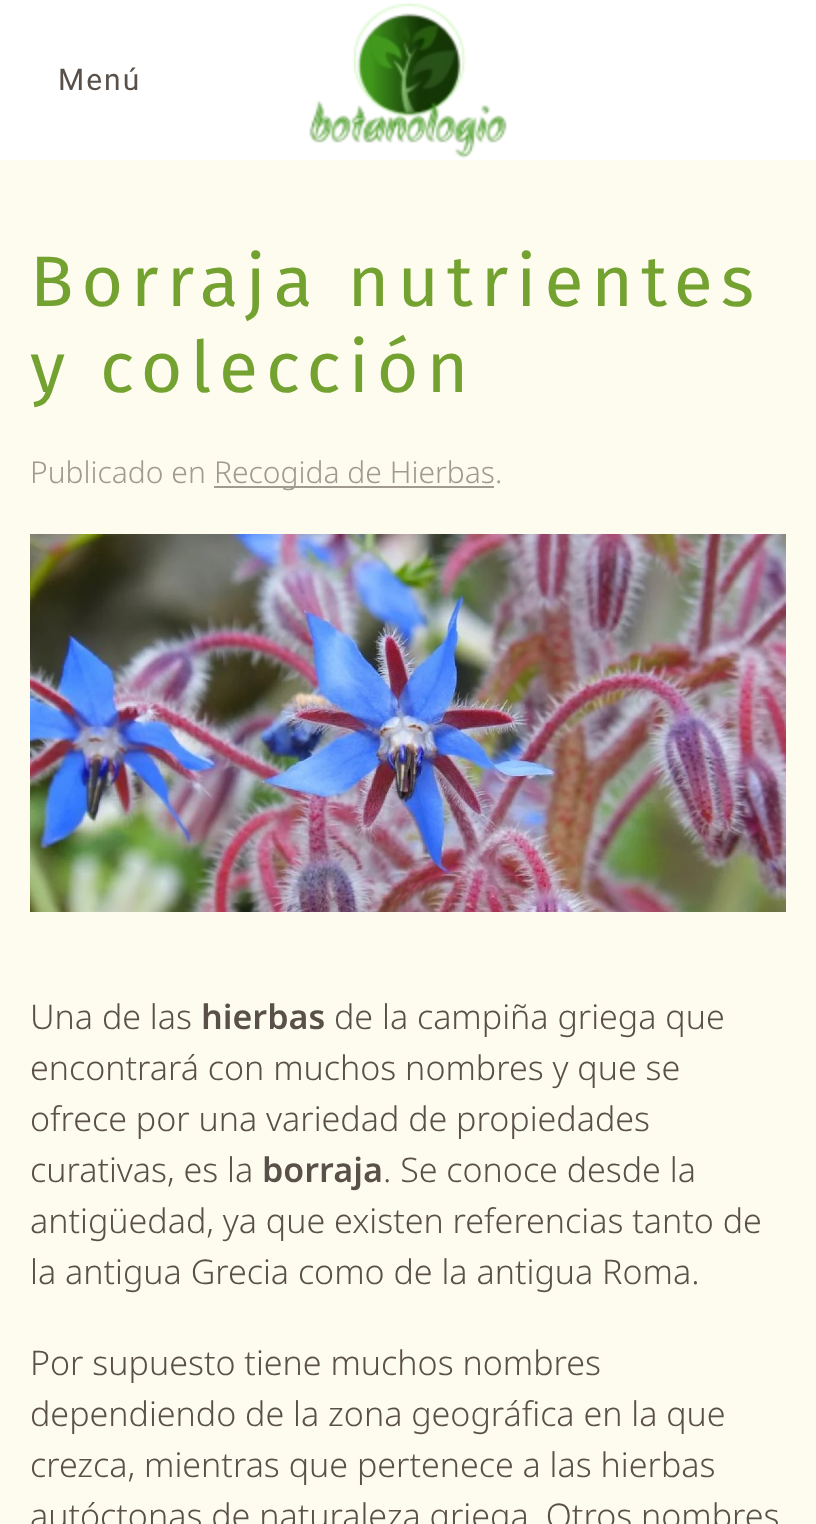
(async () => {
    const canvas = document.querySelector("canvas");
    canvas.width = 816;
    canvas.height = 1524;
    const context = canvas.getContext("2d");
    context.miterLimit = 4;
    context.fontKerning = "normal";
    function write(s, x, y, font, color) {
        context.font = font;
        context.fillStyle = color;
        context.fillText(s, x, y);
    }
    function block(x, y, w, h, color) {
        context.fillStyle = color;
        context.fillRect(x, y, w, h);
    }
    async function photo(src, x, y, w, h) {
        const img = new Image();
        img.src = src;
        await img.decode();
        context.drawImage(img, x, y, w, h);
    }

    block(0, 0, 816, 1524, "rgb(254, 251, 239)");
    block(0, 0, 816, 160, "rgb(255, 255, 255)");
    context.letterSpacing = "2px";
    write("Menú", 58, 90, "30px Roboto", "rgb(89, 81, 73)");
    await photo("media/1.png", 309, 3, 198, 156);
    context.letterSpacing = "8px";
    write("Borraja nutrientes", 30, 306, "71.4px Fira Sans", "rgb(116, 162, 48)");
    write("y colección", 30, 392, "71.4px Fira Sans", "rgb(116, 162, 48)");
    context.letterSpacing = "0px";
    write("Publicado en", 30, 483, "300 30px Noto Sans", "rgb(160, 154, 145)");
    block(214, 486, 280, 2, "rgb(160, 154, 145)");
    write("Recogida de Hierbas.", 214, 483, "300 30px Noto Sans", "rgb(160, 154, 145)");
    await photo("media/2.png", 30, 534, 756, 378);
    write("Una de las", 30, 1029, "300 34px Noto Sans", "rgb(89, 81, 73)");
    write("hierbas", 201, 1029, "600 34px Noto Sans", "rgb(89, 81, 73)");
    write("de la campiña griega que", 334, 1029, "300 34px Noto Sans", "rgb(89, 81, 73)");
    write("encontrará con muchos nombres y que se", 30, 1080, "300 34px Noto Sans", "rgb(89, 81, 73)");
    write("ofrece por una variedad de propiedades", 30, 1131, "300 34px Noto Sans", "rgb(89, 81, 73)");
    write("curativas, es la", 30, 1182, "300 34px Noto Sans", "rgb(89, 81, 73)");
    write("borraja", 262, 1182, "600 34px Noto Sans", "rgb(89, 81, 73)");
    write(". Se conoce desde la", 383, 1182, "300 34px Noto Sans", "rgb(89, 81, 73)");
    write("antigüedad, ya que existen referencias tanto de", 30, 1233, "300 34px Noto Sans", "rgb(89, 81, 73)");
    write("la antigua Grecia como de la antigua Roma.", 30, 1284, "300 34px Noto Sans", "rgb(89, 81, 73)");
    write("Por supuesto tiene muchos nombres", 30, 1375, "300 34px Noto Sans", "rgb(89, 81, 73)");
    write("dependiendo de la zona geográfica en la que", 30, 1426, "300 34px Noto Sans", "rgb(89, 81, 73)");
    write("crezca, mientras que pertenece a las hierbas", 30, 1477, "300 34px Noto Sans", "rgb(89, 81, 73)");
    write("autóctonas de naturaleza griega. Otros nombres", 30, 1528, "300 34px Noto Sans", "rgb(89, 81, 73)");
})();
